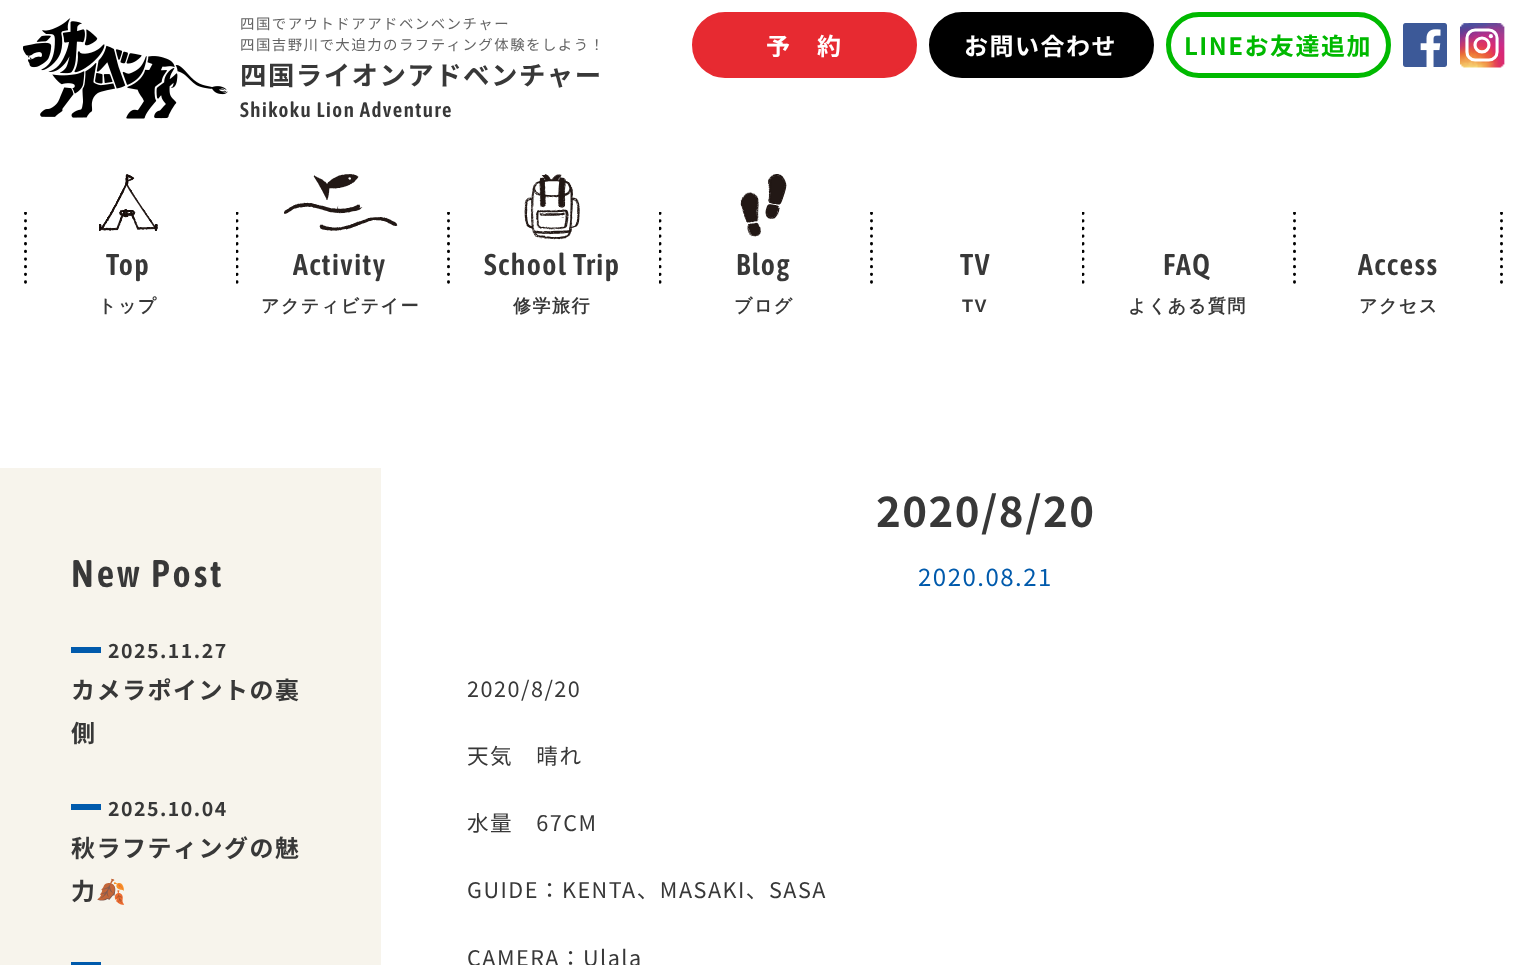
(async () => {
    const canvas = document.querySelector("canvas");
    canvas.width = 1527;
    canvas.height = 965;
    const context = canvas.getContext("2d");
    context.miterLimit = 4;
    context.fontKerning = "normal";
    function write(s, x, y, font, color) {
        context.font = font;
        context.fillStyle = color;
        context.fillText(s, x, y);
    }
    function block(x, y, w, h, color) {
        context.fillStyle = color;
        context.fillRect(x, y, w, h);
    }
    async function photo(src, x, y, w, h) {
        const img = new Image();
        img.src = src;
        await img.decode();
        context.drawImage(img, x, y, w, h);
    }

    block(0, 0, 1527, 965, "rgb(255, 255, 255)");
    await photo("media/1.png", 23, 18, 205, 101);
    context.letterSpacing = "1.5px";
    write("四国でアウトドアアドベンベンチャー", 240, 29, "14.4px Noto Sans JP", "rgb(100, 100, 100)");
    write("四国吉野川で大迫力のラフティング体験をしよう！", 240, 50, "14.4px Noto Sans JP", "rgb(100, 100, 100)");
    write("四国ライオンアドベンチャー", 240, 85, "bold 26.4px Noto Sans JP", "rgb(56, 56, 56)");
    write("Shikoku Lion Adventure", 240, 117, "600 20.9px Asap Condensed", "rgb(56, 56, 56)");
    context.fillStyle = "rgb(231, 42, 49)";
    context.beginPath();
    context.roundRect(694.5, 14.5, 220, 61, 30.5);
    context.fill();
    context.strokeStyle = "rgb(231, 42, 49)";
    context.lineWidth = 5;
    context.stroke();
    write("予　約", 766, 55, "bold 24px Noto Sans JP", "rgb(255, 255, 255)");
    context.fillStyle = "rgb(0, 0, 0)";
    context.beginPath();
    context.roundRect(931.5, 14.5, 220, 61, 30.5);
    context.fill();
    context.strokeStyle = "rgb(0, 0, 0)";
    context.stroke();
    write("お問い合わせ", 964, 55, "bold 24px Noto Sans JP", "rgb(255, 255, 255)");
    context.beginPath();
    context.roundRect(1168.5, 14.5, 220, 61, 30.5);
    context.strokeStyle = "rgb(0, 185, 0)";
    context.stroke();
    write("LINEお友達追加", 1184, 55, "bold 24px Noto Sans JP", "rgb(0, 185, 0)");
    await photo("media/2.png", 1403, 23, 44, 44);
    await photo("media/3.png", 1460, 23, 45, 45);
    context.save();
    context.beginPath();
    context.rect(24, 212, 3, 75);
    context.clip();
    context.beginPath();
    context.moveTo(25.5, 213);
    context.lineTo(25.5, 285);
    context.strokeStyle = "rgb(0, 0, 0)";
    context.lineWidth = 2.9;
    context.lineCap = "round";
    context.lineJoin = "round";
    context.setLineDash([0.43, 7.21]);
    context.stroke();
    context.restore();
    await photo("media/4.png", 99, 174, 59, 57);
    write("Top", 106, 275, "600 30px Asap Condensed", "rgb(56, 56, 56)");
    write("トップ", 98, 312, "bold 18px WenQuanYi Zen Hei", "rgb(56, 56, 56)");
    context.save();
    context.beginPath();
    context.rect(236, 212, 3, 75);
    context.clip();
    context.beginPath();
    context.moveTo(237, 213);
    context.lineTo(237, 285);
    context.strokeStyle = "rgb(0, 0, 0)";
    context.lineWidth = 2.9;
    context.lineCap = "round";
    context.lineJoin = "round";
    context.setLineDash([0.43, 7.21]);
    context.stroke();
    context.restore();
    await photo("media/5.png", 284, 174, 114, 57);
    write("Activity", 293, 275, "600 30px Asap Condensed", "rgb(56, 56, 56)");
    write("アクティビテイー", 261, 312, "bold 18px WenQuanYi Zen Hei", "rgb(56, 56, 56)");
    context.save();
    context.beginPath();
    context.rect(447, 212, 3, 75);
    context.clip();
    context.beginPath();
    context.moveTo(448.5, 213);
    context.lineTo(448.5, 285);
    context.strokeStyle = "rgb(0, 0, 0)";
    context.lineWidth = 2.9;
    context.lineCap = "round";
    context.lineJoin = "round";
    context.setLineDash([0.43, 7.21]);
    context.stroke();
    context.restore();
    await photo("media/6.png", 524, 174, 56, 66);
    write("School Trip", 484, 275, "600 30px Asap Condensed", "rgb(56, 56, 56)");
    write("修学旅行", 513, 312, "bold 18px WenQuanYi Zen Hei", "rgb(56, 56, 56)");
    context.save();
    context.beginPath();
    context.rect(659, 212, 3, 75);
    context.clip();
    context.beginPath();
    context.moveTo(660, 213);
    context.lineTo(660, 285);
    context.strokeStyle = "rgb(0, 0, 0)";
    context.lineWidth = 2.9;
    context.lineCap = "round";
    context.lineJoin = "round";
    context.setLineDash([0.43, 7.21]);
    context.stroke();
    context.restore();
    await photo("media/7.png", 740, 174, 47, 63);
    write("Blog", 736, 275, "600 30px Asap Condensed", "rgb(56, 56, 56)");
    write("ブログ", 734, 312, "bold 18px WenQuanYi Zen Hei", "rgb(56, 56, 56)");
    context.save();
    context.beginPath();
    context.rect(870, 212, 3, 75);
    context.clip();
    context.beginPath();
    context.moveTo(871.5, 213);
    context.lineTo(871.5, 285);
    context.strokeStyle = "rgb(0, 0, 0)";
    context.lineWidth = 2.9;
    context.lineCap = "round";
    context.lineJoin = "round";
    context.setLineDash([0.43, 7.21]);
    context.stroke();
    context.restore();
    write("TV", 960, 275, "600 30px Asap Condensed", "rgb(56, 56, 56)");
    write("TV", 962, 312, "bold 18px Liberation Sans", "rgb(56, 56, 56)");
    context.save();
    context.beginPath();
    context.rect(1082, 212, 3, 75);
    context.clip();
    context.beginPath();
    context.moveTo(1083, 213);
    context.lineTo(1083, 285);
    context.strokeStyle = "rgb(0, 0, 0)";
    context.lineWidth = 2.9;
    context.lineCap = "round";
    context.lineJoin = "round";
    context.setLineDash([0.43, 7.21]);
    context.stroke();
    context.restore();
    write("FAQ", 1163, 275, "600 30px Asap Condensed", "rgb(56, 56, 56)");
    write("よくある質問", 1128, 312, "bold 18px WenQuanYi Zen Hei", "rgb(56, 56, 56)");
    context.save();
    context.beginPath();
    context.rect(1293, 212, 3, 75);
    context.clip();
    context.beginPath();
    context.moveTo(1294.5, 213);
    context.lineTo(1294.5, 285);
    context.strokeStyle = "rgb(0, 0, 0)";
    context.lineWidth = 2.9;
    context.lineCap = "round";
    context.lineJoin = "round";
    context.setLineDash([0.43, 7.21]);
    context.stroke();
    context.restore();
    write("Access", 1358, 275, "600 30px Asap Condensed", "rgb(56, 56, 56)");
    write("アクセス", 1359, 312, "bold 18px WenQuanYi Zen Hei", "rgb(56, 56, 56)");
    context.save();
    context.beginPath();
    context.rect(1500, 212, 3, 75);
    context.clip();
    context.beginPath();
    context.moveTo(1501.5, 213);
    context.lineTo(1501.5, 285);
    context.strokeStyle = "rgb(0, 0, 0)";
    context.lineWidth = 2.9;
    context.lineCap = "round";
    context.lineJoin = "round";
    context.setLineDash([0.43, 7.21]);
    context.stroke();
    context.restore();
    block(0, 468, 381, 497, "rgb(247, 244, 236)");
    context.letterSpacing = "3px";
    write("New Post", 71, 587, "600 38.5px Asap Condensed", "rgb(56, 56, 56)");
    block(71, 647, 30, 6, "rgb(0, 90, 172)");
    context.letterSpacing = "1.5px";
    write("2025.11.27", 108, 658, "bold 19.5px Noto Sans JP", "rgb(56, 56, 56)");
    write("カメラポイントの裏", 71, 699, "bold 24px Noto Sans JP", "rgb(56, 56, 56)");
    write("側", 71, 742, "bold 24px Noto Sans JP", "rgb(56, 56, 56)");
    block(71, 804, 30, 6, "rgb(0, 90, 172)");
    write("2025.10.04", 108, 816, "bold 19.5px Noto Sans JP", "rgb(56, 56, 56)");
    write("秋ラフティングの魅", 71, 857, "bold 24px Noto Sans JP", "rgb(56, 56, 56)");
    write("力", 71, 900, "bold 24px Noto Sans JP", "rgb(56, 56, 56)");
    write("🍂", 96, 900, "bold 24px Noto Color Emoji", "rgb(56, 56, 56)");
    block(71, 962, 30, 3, "rgb(0, 90, 172)");
    write("2020/8/20", 876, 527, "bold 42px Noto Sans JP", "rgb(56, 56, 56)");
    write("2020.08.21", 918, 586, "24px Noto Sans JP", "rgb(0, 90, 172)");
    write("2020/8/20", 467, 697, "21.6px Noto Sans JP", "rgb(56, 56, 56)");
    write("天気　晴れ", 467, 764, "21.6px Noto Sans JP", "rgb(56, 56, 56)");
    write("水量　67CM", 467, 831, "21.6px Noto Sans JP", "rgb(56, 56, 56)");
    write("GUIDE：KENTA、MASAKI、SASA", 467, 898, "21.6px Noto Sans JP", "rgb(56, 56, 56)");
    write("CAMERA：Ulala", 467, 966, "21.6px Noto Sans JP", "rgb(56, 56, 56)");
})();
